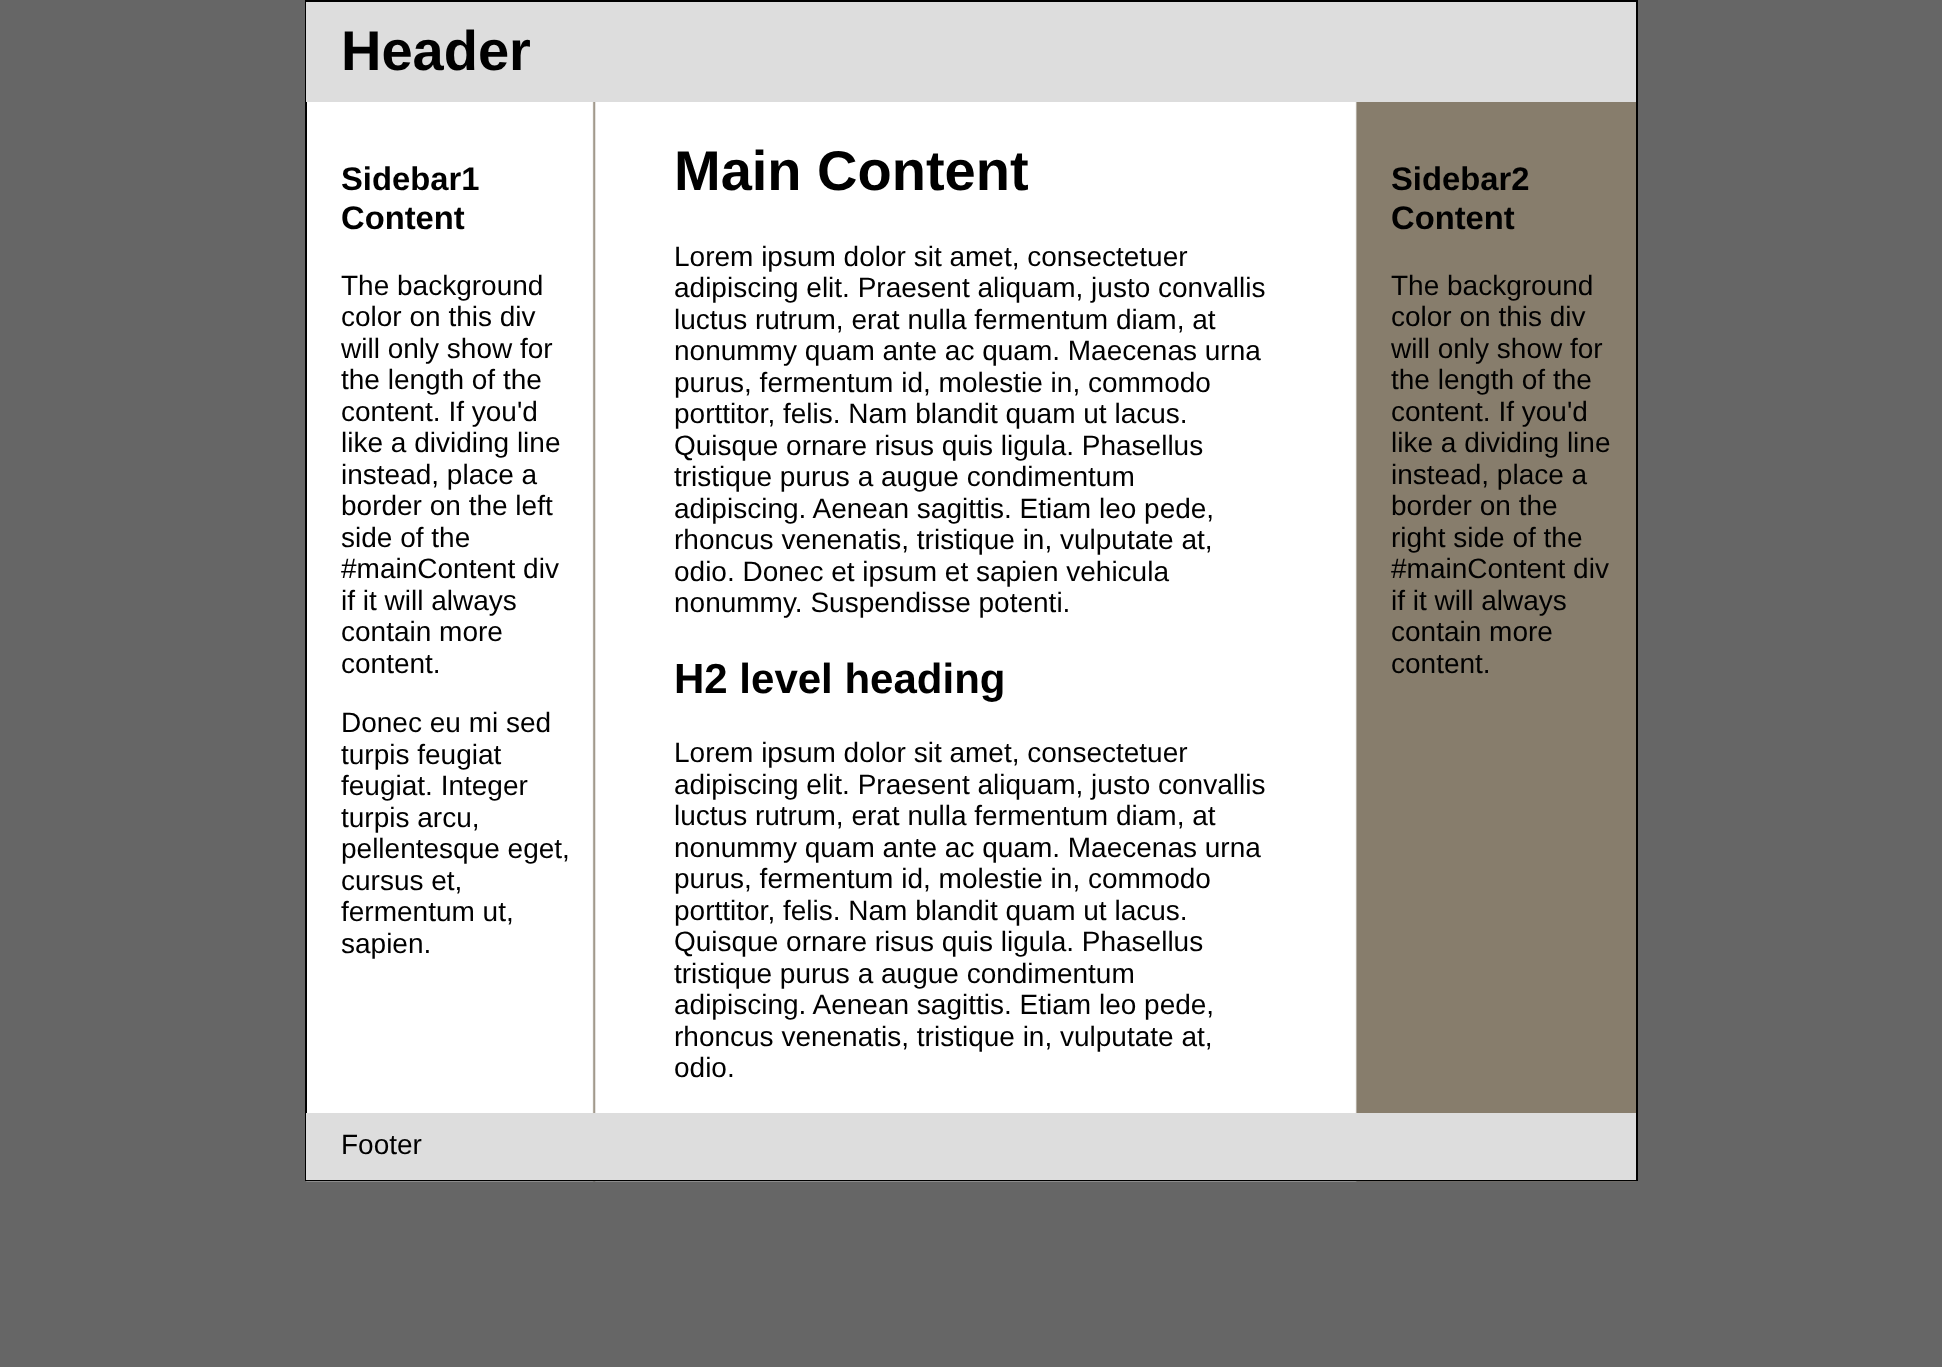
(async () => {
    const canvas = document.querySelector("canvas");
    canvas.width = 1942;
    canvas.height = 1367;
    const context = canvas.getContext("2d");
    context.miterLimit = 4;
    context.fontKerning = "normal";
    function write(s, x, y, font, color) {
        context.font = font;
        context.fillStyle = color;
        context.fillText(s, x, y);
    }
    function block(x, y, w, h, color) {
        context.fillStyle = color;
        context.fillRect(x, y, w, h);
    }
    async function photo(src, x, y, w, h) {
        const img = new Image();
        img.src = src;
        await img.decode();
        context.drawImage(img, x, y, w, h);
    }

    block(0, 0, 1942, 1367, "rgb(102, 102, 102)");
    await photo("media/1.png", 306, 102, 1331, 1080);
    context.strokeStyle = "rgb(0, 0, 0)";
    context.lineWidth = 2;
    context.strokeRect(306, 1, 1331, 1179);
    block(306, 2, 1330, 100, "rgb(221, 221, 221)");
    write("Header", 341, 70, "bold 56px Liberation Sans", "rgb(0, 0, 0)");
    write("Sidebar1", 341, 190, "bold 32.75px Liberation Sans", "rgb(0, 0, 0)");
    write("Content", 341, 229, "bold 32.75px Liberation Sans", "rgb(0, 0, 0)");
    write("The background", 341, 295, "28px Liberation Sans", "rgb(0, 0, 0)");
    write("color on this div", 341, 326, "28px Liberation Sans", "rgb(0, 0, 0)");
    write("will only show for", 341, 358, "28px Liberation Sans", "rgb(0, 0, 0)");
    write("the length of the", 341, 389, "28px Liberation Sans", "rgb(0, 0, 0)");
    write("content. If you'd", 341, 421, "28px Liberation Sans", "rgb(0, 0, 0)");
    write("like a dividing line", 341, 452, "28px Liberation Sans", "rgb(0, 0, 0)");
    write("instead, place a", 341, 484, "28px Liberation Sans", "rgb(0, 0, 0)");
    write("border on the left", 341, 515, "28px Liberation Sans", "rgb(0, 0, 0)");
    write("side of the", 341, 547, "28px Liberation Sans", "rgb(0, 0, 0)");
    write("#mainContent div", 341, 578, "28px Liberation Sans", "rgb(0, 0, 0)");
    write("if it will always", 341, 610, "28px Liberation Sans", "rgb(0, 0, 0)");
    write("contain more", 341, 641, "28px Liberation Sans", "rgb(0, 0, 0)");
    write("content.", 341, 673, "28px Liberation Sans", "rgb(0, 0, 0)");
    write("Donec eu mi sed", 341, 732, "28px Liberation Sans", "rgb(0, 0, 0)");
    write("turpis feugiat", 341, 764, "28px Liberation Sans", "rgb(0, 0, 0)");
    write("feugiat. Integer", 341, 795, "28px Liberation Sans", "rgb(0, 0, 0)");
    write("turpis arcu,", 341, 827, "28px Liberation Sans", "rgb(0, 0, 0)");
    write("pellentesque eget,", 341, 858, "28px Liberation Sans", "rgb(0, 0, 0)");
    write("cursus et,", 341, 890, "28px Liberation Sans", "rgb(0, 0, 0)");
    write("fermentum ut,", 341, 921, "28px Liberation Sans", "rgb(0, 0, 0)");
    write("sapien.", 341, 953, "28px Liberation Sans", "rgb(0, 0, 0)");
    write("Main Content", 674, 190, "bold 56px Liberation Sans", "rgb(0, 0, 0)");
    write("Lorem ipsum dolor sit amet, consectetuer", 674, 266, "28px Liberation Sans", "rgb(0, 0, 0)");
    write("adipiscing elit. Praesent aliquam, justo convallis", 674, 297, "28px Liberation Sans", "rgb(0, 0, 0)");
    write("luctus rutrum, erat nulla fermentum diam, at", 674, 329, "28px Liberation Sans", "rgb(0, 0, 0)");
    write("nonummy quam ante ac quam. Maecenas urna", 674, 360, "28px Liberation Sans", "rgb(0, 0, 0)");
    write("purus, fermentum id, molestie in, commodo", 674, 392, "28px Liberation Sans", "rgb(0, 0, 0)");
    write("porttitor, felis. Nam blandit quam ut lacus.", 674, 423, "28px Liberation Sans", "rgb(0, 0, 0)");
    write("Quisque ornare risus quis ligula. Phasellus", 674, 455, "28px Liberation Sans", "rgb(0, 0, 0)");
    write("tristique purus a augue condimentum", 674, 486, "28px Liberation Sans", "rgb(0, 0, 0)");
    write("adipiscing. Aenean sagittis. Etiam leo pede,", 674, 518, "28px Liberation Sans", "rgb(0, 0, 0)");
    write("rhoncus venenatis, tristique in, vulputate at,", 674, 549, "28px Liberation Sans", "rgb(0, 0, 0)");
    write("odio. Donec et ipsum et sapien vehicula", 674, 581, "28px Liberation Sans", "rgb(0, 0, 0)");
    write("nonummy. Suspendisse potenti.", 674, 612, "28px Liberation Sans", "rgb(0, 0, 0)");
    write("H2 level heading", 674, 693, "bold 42px Liberation Sans", "rgb(0, 0, 0)");
    write("Lorem ipsum dolor sit amet, consectetuer", 674, 762, "28px Liberation Sans", "rgb(0, 0, 0)");
    write("adipiscing elit. Praesent aliquam, justo convallis", 674, 794, "28px Liberation Sans", "rgb(0, 0, 0)");
    write("luctus rutrum, erat nulla fermentum diam, at", 674, 825, "28px Liberation Sans", "rgb(0, 0, 0)");
    write("nonummy quam ante ac quam. Maecenas urna", 674, 857, "28px Liberation Sans", "rgb(0, 0, 0)");
    write("purus, fermentum id, molestie in, commodo", 674, 888, "28px Liberation Sans", "rgb(0, 0, 0)");
    write("porttitor, felis. Nam blandit quam ut lacus.", 674, 920, "28px Liberation Sans", "rgb(0, 0, 0)");
    write("Quisque ornare risus quis ligula. Phasellus", 674, 951, "28px Liberation Sans", "rgb(0, 0, 0)");
    write("tristique purus a augue condimentum", 674, 983, "28px Liberation Sans", "rgb(0, 0, 0)");
    write("adipiscing. Aenean sagittis. Etiam leo pede,", 674, 1014, "28px Liberation Sans", "rgb(0, 0, 0)");
    write("rhoncus venenatis, tristique in, vulputate at,", 674, 1046, "28px Liberation Sans", "rgb(0, 0, 0)");
    write("odio.", 674, 1077, "28px Liberation Sans", "rgb(0, 0, 0)");
    write("Sidebar2", 1391, 190, "bold 32.75px Liberation Sans", "rgb(0, 0, 0)");
    write("Content", 1391, 229, "bold 32.75px Liberation Sans", "rgb(0, 0, 0)");
    write("The background", 1391, 295, "28px Liberation Sans", "rgb(0, 0, 0)");
    write("color on this div", 1391, 326, "28px Liberation Sans", "rgb(0, 0, 0)");
    write("will only show for", 1391, 358, "28px Liberation Sans", "rgb(0, 0, 0)");
    write("the length of the", 1391, 389, "28px Liberation Sans", "rgb(0, 0, 0)");
    write("content. If you'd", 1391, 421, "28px Liberation Sans", "rgb(0, 0, 0)");
    write("like a dividing line", 1391, 452, "28px Liberation Sans", "rgb(0, 0, 0)");
    write("instead, place a", 1391, 484, "28px Liberation Sans", "rgb(0, 0, 0)");
    write("border on the", 1391, 515, "28px Liberation Sans", "rgb(0, 0, 0)");
    write("right side of the", 1391, 547, "28px Liberation Sans", "rgb(0, 0, 0)");
    write("#mainContent div", 1391, 578, "28px Liberation Sans", "rgb(0, 0, 0)");
    write("if it will always", 1391, 610, "28px Liberation Sans", "rgb(0, 0, 0)");
    write("contain more", 1391, 641, "28px Liberation Sans", "rgb(0, 0, 0)");
    write("content.", 1391, 673, "28px Liberation Sans", "rgb(0, 0, 0)");
    block(306, 1113, 1330, 67, "rgb(221, 221, 221)");
    write("Footer", 341, 1154, "28px Liberation Sans", "rgb(0, 0, 0)");
})();
